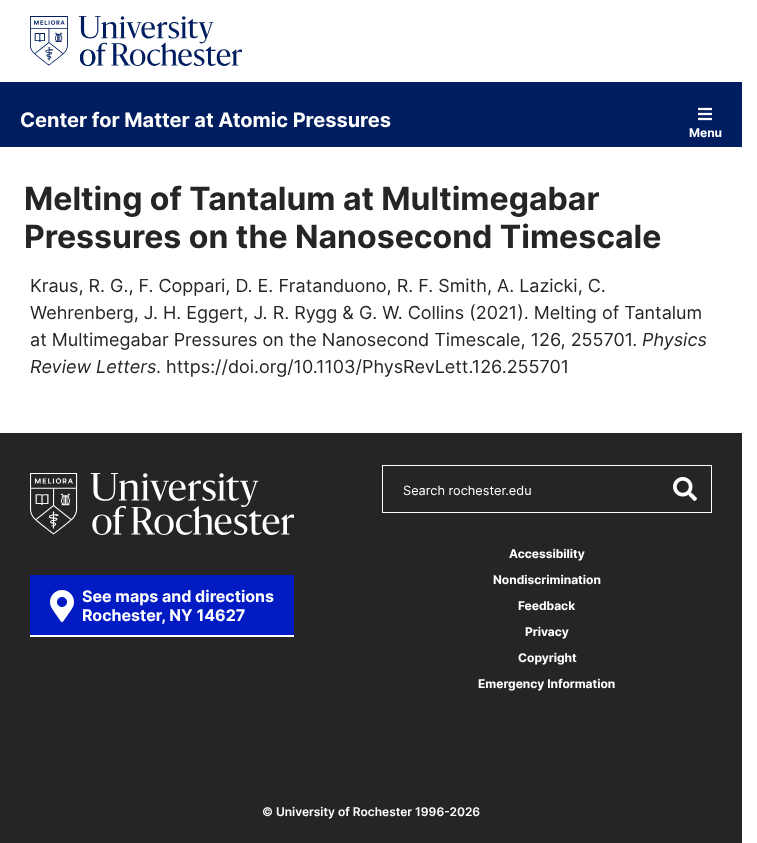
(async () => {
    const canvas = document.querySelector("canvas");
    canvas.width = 757;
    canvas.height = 843;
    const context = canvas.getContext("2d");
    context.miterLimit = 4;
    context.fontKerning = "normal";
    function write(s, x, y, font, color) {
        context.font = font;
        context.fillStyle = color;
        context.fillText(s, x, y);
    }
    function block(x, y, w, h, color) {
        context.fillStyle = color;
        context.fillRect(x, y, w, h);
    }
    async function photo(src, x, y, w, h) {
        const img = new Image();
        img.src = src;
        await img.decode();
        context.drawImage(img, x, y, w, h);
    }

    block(0, 0, 757, 843, "rgb(255, 255, 255)");
    await photo("media/1.png", 30, 16, 212, 50);
    block(0, 82, 742, 65, "rgb(0, 30, 95)");
    write("Center for Matter at Atomic Pressures", 20, 127, "bold 20px Inter", "rgb(255, 255, 255)");
    await photo("media/2.png", 698, 107, 14, 14);
    write("Menu", 689, 137, "bold 12px Inter", "rgb(255, 255, 255)");
    write("Melting of Tantalum at Multimegabar", 24, 210, "bold 32px Inter", "rgb(37, 37, 37)");
    write("Pressures on the Nanosecond Timescale", 24, 248, "bold 32px Inter", "rgb(37, 37, 37)");
    write("Kraus, R. G., F. Coppari, D. E. Fratanduono, R. F. Smith, A. Lazicki, C.", 30, 292, "18px Inter", "rgb(37, 37, 37)");
    write("Wehrenberg, J. H. Eggert, J. R. Rygg & G. W. Collins (2021). Melting of Tantalum", 30, 319, "18px Inter", "rgb(37, 37, 37)");
    write("at Multimegabar Pressures on the Nanosecond Timescale, 126, 255701.", 30, 346, "18px Inter", "rgb(37, 37, 37)");
    write("Physics", 642, 346, "italic 18px Inter", "rgb(37, 37, 37)");
    write("Review Letters", 30, 373, "italic 18px Inter", "rgb(37, 37, 37)");
    write(". https://doi.org/10.1103/PhysRevLett.126.255701", 156, 373, "18px Inter", "rgb(37, 37, 37)");
    block(0, 433, 742, 410, "rgb(37, 37, 37)");
    await photo("media/3.png", 30, 473, 264, 62);
    block(30, 575, 264, 60, "rgb(2, 27, 195)");
    await photo("media/4.png", 50, 590, 24, 32);
    write("See maps and directions", 82, 602, "bold 16px Inter", "rgb(255, 255, 255)");
    write("Rochester, NY 14627", 82, 621, "bold 16px Inter", "rgb(255, 255, 255)");
    block(30, 635, 264, 2, "rgb(255, 255, 255)");
    context.strokeStyle = "rgb(255, 255, 255)";
    context.strokeRect(382.5, 465.5, 329, 47);
    write("Search rochester.edu", 403, 495, "12.75px Inter", "rgb(255, 255, 255)");
    await photo("media/5.png", 673, 477, 24, 24);
    write("Accessibility", 509, 558, "bold 12px Inter", "rgb(255, 255, 255)");
    write("Nondiscrimination", 493, 584, "bold 12px Inter", "rgb(255, 255, 255)");
    write("Feedback", 518, 610, "bold 12px Inter", "rgb(255, 255, 255)");
    write("Privacy", 525, 636, "bold 12px Inter", "rgb(255, 255, 255)");
    write("Copyright", 518, 662, "bold 12px Inter", "rgb(255, 255, 255)");
    write("Emergency Information", 478, 688, "bold 12px Inter", "rgb(255, 255, 255)");
    write("© University of Rochester 1996-2026", 262, 816, "600 12px Inter", "rgb(255, 255, 255)");
})();
